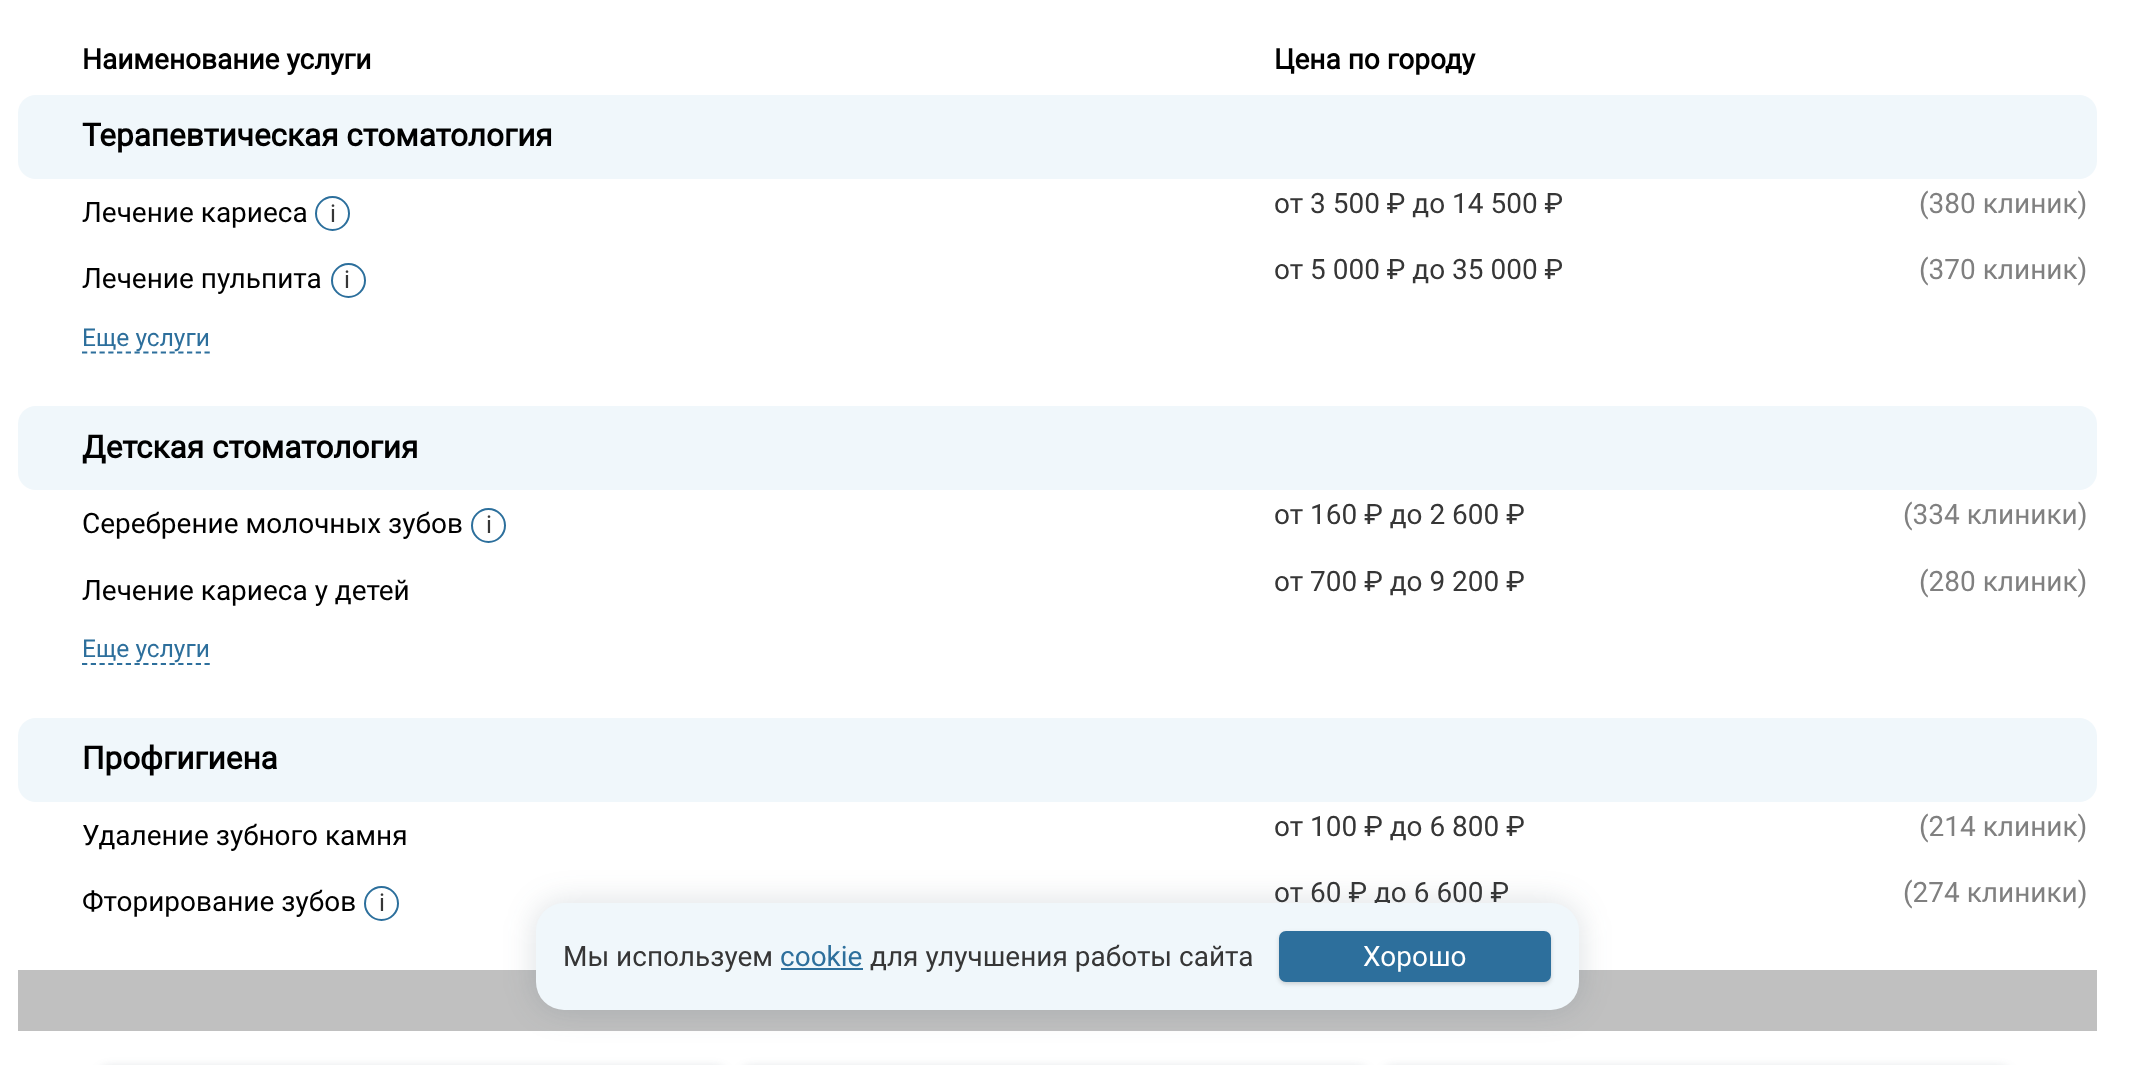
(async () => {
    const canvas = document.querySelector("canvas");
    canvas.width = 2139;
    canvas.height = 1065;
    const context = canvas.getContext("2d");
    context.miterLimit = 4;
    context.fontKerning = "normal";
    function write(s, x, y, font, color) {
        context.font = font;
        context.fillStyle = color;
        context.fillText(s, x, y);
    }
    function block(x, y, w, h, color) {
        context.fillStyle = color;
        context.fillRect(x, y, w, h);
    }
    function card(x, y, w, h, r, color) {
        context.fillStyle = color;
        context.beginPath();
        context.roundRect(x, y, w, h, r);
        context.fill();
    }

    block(0, 0, 2139, 1065, "rgb(255, 255, 255)");
    write("Наименование услуги", 82, 69, "bold 28px Roboto", "rgb(0, 0, 0)");
    write("Цена по городу", 1274, 69, "bold 28px Roboto", "rgb(0, 0, 0)");
    context.fillStyle = "rgb(240, 247, 251)";
    context.beginPath();
    context.roundRect(18, 95, 1247, 84, [18, 0, 0, 18]);
    context.fill();
    write("Терапевтическая стоматология", 82, 146, "bold 31.5px Roboto", "rgb(0, 0, 0)");
    context.fillStyle = "rgb(240, 247, 251)";
    context.beginPath();
    context.roundRect(1265, 95, 832, 84, [0, 18, 18, 0]);
    context.fill();
    write("Лечение кариеса", 82, 222, "28px Roboto", "rgb(0, 0, 0)");
    context.beginPath();
    context.arc(332.5, 213.5, 16.5, 0, Math.PI * 2);
    context.strokeStyle = "rgb(44, 111, 156)";
    context.lineWidth = 2;
    context.stroke();
    write("i", 330, 222, "24.5px Roboto", "rgb(54, 54, 54)");
    write("от 3 500 ₽ до 14 500 ₽", 1274, 213, "28px Roboto", "rgb(54, 54, 54)");
    write("(380 клиник)", 1919, 213, "28px Roboto", "rgb(128, 128, 128)");
    write("Лечение пульпита", 82, 288, "28px Roboto", "rgb(0, 0, 0)");
    context.beginPath();
    context.arc(348.5, 280.5, 16.5, 0, Math.PI * 2);
    context.stroke();
    write("i", 344, 288, "24.5px Roboto", "rgb(54, 54, 54)");
    write("от 5 000 ₽ до 35 000 ₽", 1274, 279, "28px Roboto", "rgb(54, 54, 54)");
    write("(370 клиник)", 1919, 279, "28px Roboto", "rgb(128, 128, 128)");
    context.beginPath();
    context.moveTo(82, 352.5);
    context.lineTo(210, 352.5);
    context.strokeStyle = "rgb(45, 111, 156)";
    context.lineWidth = 1.8;
    context.setLineDash([5.25, 3.5]);
    context.stroke();
    write("Еще услуги", 82, 346, "24.5px Roboto", "rgb(45, 111, 156)");
    context.fillStyle = "rgb(240, 247, 251)";
    context.beginPath();
    context.roundRect(18, 406, 1247, 84, [18, 0, 0, 18]);
    context.fill();
    write("Детская стоматология", 82, 458, "bold 31.5px Roboto", "rgb(0, 0, 0)");
    context.fillStyle = "rgb(240, 247, 251)";
    context.beginPath();
    context.roundRect(1265, 406, 832, 84, [0, 18, 18, 0]);
    context.fill();
    write("Серебрение молочных зубов", 82, 533, "28px Roboto", "rgb(0, 0, 0)");
    context.beginPath();
    context.arc(488.5, 525.5, 16.5, 0, Math.PI * 2);
    context.strokeStyle = "rgb(44, 111, 156)";
    context.lineWidth = 2;
    context.setLineDash([]);
    context.stroke();
    write("i", 486, 533, "24.5px Roboto", "rgb(54, 54, 54)");
    write("от 160 ₽ до 2 600 ₽", 1274, 524, "28px Roboto", "rgb(54, 54, 54)");
    write("(334 клиники)", 1903, 524, "28px Roboto", "rgb(128, 128, 128)");
    write("Лечение кариеса у детей", 82, 600, "28px Roboto", "rgb(0, 0, 0)");
    write("от 700 ₽ до 9 200 ₽", 1274, 591, "28px Roboto", "rgb(54, 54, 54)");
    write("(280 клиник)", 1919, 591, "28px Roboto", "rgb(128, 128, 128)");
    write("Еще услуги", 82, 657, "24.5px Roboto", "rgb(45, 111, 156)");
    context.beginPath();
    context.moveTo(82, 664);
    context.lineTo(210, 664);
    context.strokeStyle = "rgb(45, 111, 156)";
    context.lineWidth = 1.8;
    context.setLineDash([5.25, 3.5]);
    context.stroke();
    context.fillStyle = "rgb(240, 247, 251)";
    context.beginPath();
    context.roundRect(18, 718, 1247, 84, [18, 0, 0, 18]);
    context.fill();
    write("Профгигиена", 82, 769, "bold 31.5px Roboto", "rgb(0, 0, 0)");
    context.fillStyle = "rgb(240, 247, 251)";
    context.beginPath();
    context.roundRect(1265, 718, 832, 84, [0, 18, 18, 0]);
    context.fill();
    write("Удаление зубного камня", 82, 845, "28px Roboto", "rgb(0, 0, 0)");
    write("от 100 ₽ до 6 800 ₽", 1274, 836, "28px Roboto", "rgb(54, 54, 54)");
    write("(214 клиник)", 1919, 836, "28px Roboto", "rgb(128, 128, 128)");
    write("Фторирование зубов", 82, 911, "28px Roboto", "rgb(0, 0, 0)");
    context.beginPath();
    context.arc(381.5, 903.5, 16.5, 0, Math.PI * 2);
    context.strokeStyle = "rgb(44, 111, 156)";
    context.lineWidth = 2;
    context.setLineDash([]);
    context.stroke();
    write("i", 379, 911, "24.5px Roboto", "rgb(54, 54, 54)");
    write("от 60 ₽ до 6 600 ₽", 1274, 902, "28px Roboto", "rgb(54, 54, 54)");
    write("(274 клиники)", 1903, 902, "28px Roboto", "rgb(128, 128, 128)");
    block(18, 970, 2079, 61, "rgb(192, 192, 192)");
    context.fillStyle = "rgba(54, 77, 92, 0.15)";
    context.filter = "blur(4.5px)";
    context.beginPath();
    context.roundRect(95, 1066, 635, 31, 18);
    context.fill();
    context.filter = "none";
    context.filter = "blur(4.5px)";
    context.beginPath();
    context.roundRect(737, 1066, 635, 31, 18);
    context.fill();
    context.filter = "none";
    context.filter = "blur(4.5px)";
    context.beginPath();
    context.roundRect(1379, 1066, 635, 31, 18);
    context.fill();
    context.filter = "none";
    context.fillStyle = "rgba(54, 77, 92, 0.18)";
    context.filter = "blur(16px)";
    context.beginPath();
    context.roundRect(536, 903, 1043, 107, 28);
    context.fill();
    context.filter = "none";
    card(536, 903, 1043, 107, 28, "rgb(240, 247, 251)");
    write("Мы используем", 563, 966, "28px Roboto", "rgb(54, 54, 54)");
    write("cookie", 780, 966, "28px Roboto", "rgb(45, 111, 156)");
    block(781, 968, 82, 2, "rgb(45, 111, 156)");
    write("для улучшения работы сайта", 870, 966, "28px Roboto", "rgb(54, 54, 54)");
    context.fillStyle = "rgba(0, 0, 0, 0.16)";
    context.filter = "blur(2px)";
    context.beginPath();
    context.roundRect(1279, 933, 272, 51, 7);
    context.fill();
    context.filter = "none";
    card(1279, 931, 272, 51, 7, "rgb(45, 111, 156)");
    write("Хорошо", 1363, 966, "28px Roboto", "rgb(255, 255, 255)");
})();
